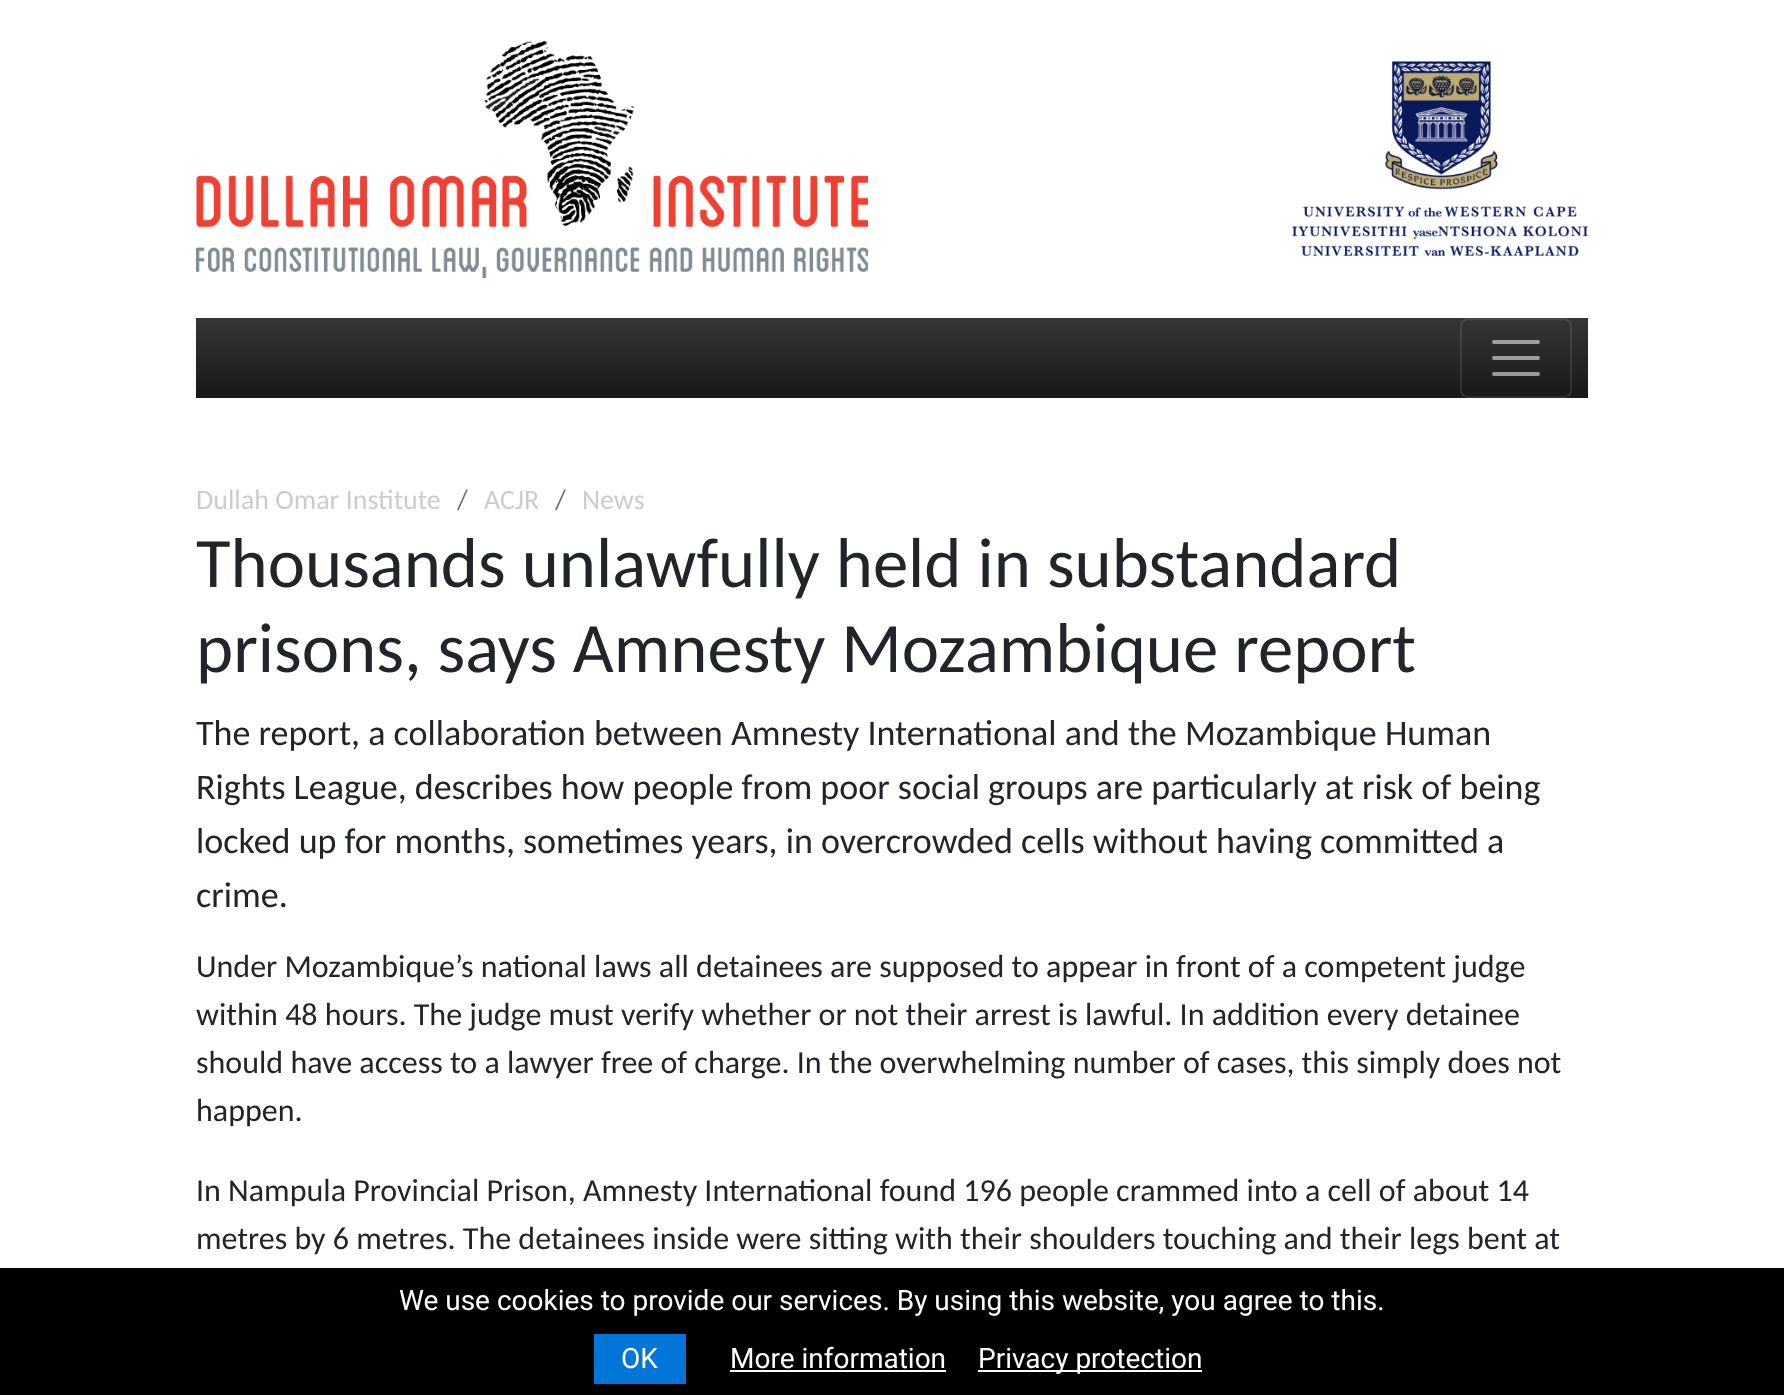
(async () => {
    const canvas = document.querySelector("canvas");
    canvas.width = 1784;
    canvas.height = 1395;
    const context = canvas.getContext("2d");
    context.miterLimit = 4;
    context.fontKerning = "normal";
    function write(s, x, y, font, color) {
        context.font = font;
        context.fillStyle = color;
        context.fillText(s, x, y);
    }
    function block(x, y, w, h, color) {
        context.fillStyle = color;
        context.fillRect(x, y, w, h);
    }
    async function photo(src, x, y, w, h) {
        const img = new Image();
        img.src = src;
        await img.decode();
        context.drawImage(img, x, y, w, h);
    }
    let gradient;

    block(0, 0, 1784, 1395, "rgb(255, 255, 255)");
    await photo("media/1.png", 196, 40, 672, 238);
    await photo("media/2.png", 1292, 61, 296, 195);
    gradient = context.createLinearGradient(892, 318, 892, 398);
    gradient.addColorStop(0, "rgb(54, 54, 54)");
    gradient.addColorStop(1, "rgb(24, 24, 24)");
    context.fillStyle = gradient;
    context.fillRect(196, 318, 1392, 80);
    context.beginPath();
    context.roundRect(1461, 319, 110, 78, 7);
    context.strokeStyle = "rgba(255, 255, 255, 0.1)";
    context.lineWidth = 2;
    context.stroke();
    context.beginPath();
    context.moveTo(1494, 342);
    context.lineTo(1538, 342);
    context.moveTo(1494, 358);
    context.lineTo(1538, 358);
    context.moveTo(1494, 374);
    context.lineTo(1538, 374);
    context.strokeStyle = "rgba(255, 255, 255, 0.55)";
    context.lineWidth = 4;
    context.lineCap = "round";
    context.stroke();
    write("Dullah Omar Institute", 196, 509, "28px Carlito", "rgb(204, 204, 204)");
    write("/", 457, 509, "28px Carlito", "rgb(108, 117, 125)");
    write("ACJR", 484, 509, "28px Carlito", "rgb(204, 204, 204)");
    write("/", 555, 509, "28px Carlito", "rgb(108, 117, 125)");
    write("News", 582, 509, "28px Carlito", "rgb(204, 204, 204)");
    write("Thousands unlawfully held in substandard", 196, 587, "70.75px Carlito", "rgb(33, 37, 41)");
    write("prisons, says Amnesty Mozambique report", 196, 672, "70.75px Carlito", "rgb(33, 37, 41)");
    write("The report, a collaboration between Amnesty International and the Mozambique Human", 196, 745, "36px Carlito", "rgb(33, 37, 41)");
    write("Rights League, describes how people from poor social groups are particularly at risk of being", 196, 799, "36px Carlito", "rgb(33, 37, 41)");
    write("locked up for months, sometimes years, in overcrowded cells without having committed a", 196, 853, "36px Carlito", "rgb(33, 37, 41)");
    write("crime.", 196, 907, "36px Carlito", "rgb(33, 37, 41)");
    write("Under Mozambique’s national laws all detainees are supposed to appear in front of a competent judge", 196, 977, "32px Carlito", "rgb(33, 37, 41)");
    write("within 48 hours. The judge must verify whether or not their arrest is lawful. In addition every detainee", 196, 1025, "32px Carlito", "rgb(33, 37, 41)");
    write("should have access to a lawyer free of charge. In the overwhelming number of cases, this simply does not", 196, 1073, "32px Carlito", "rgb(33, 37, 41)");
    write("happen.", 196, 1121, "32px Carlito", "rgb(33, 37, 41)");
    write("In Nampula Provincial Prison, Amnesty International found 196 people crammed into a cell of about 14", 196, 1201, "32px Carlito", "rgb(33, 37, 41)");
    write("metres by 6 metres. The detainees inside were sitting with their shoulders touching and their legs bent at", 196, 1249, "32px Carlito", "rgb(33, 37, 41)");
    block(0, 1268, 1784, 127, "rgb(0, 0, 0)");
    write("We use cookies to provide our services. By using this website, you agree to this.", 399, 1310, "28px Roboto", "rgb(255, 255, 255)");
    block(594, 1334, 92, 50, "rgb(2, 117, 216)");
    write("OK", 621, 1368, "28px Roboto", "rgb(255, 255, 255)");
    write("More information", 730, 1368, "28px Roboto", "rgb(255, 255, 255)");
    block(730, 1370, 216, 2, "rgb(255, 255, 255)");
    block(978, 1370, 224, 2, "rgb(255, 255, 255)");
    write("Privacy protection", 978, 1368, "28px Roboto", "rgb(255, 255, 255)");
})();
